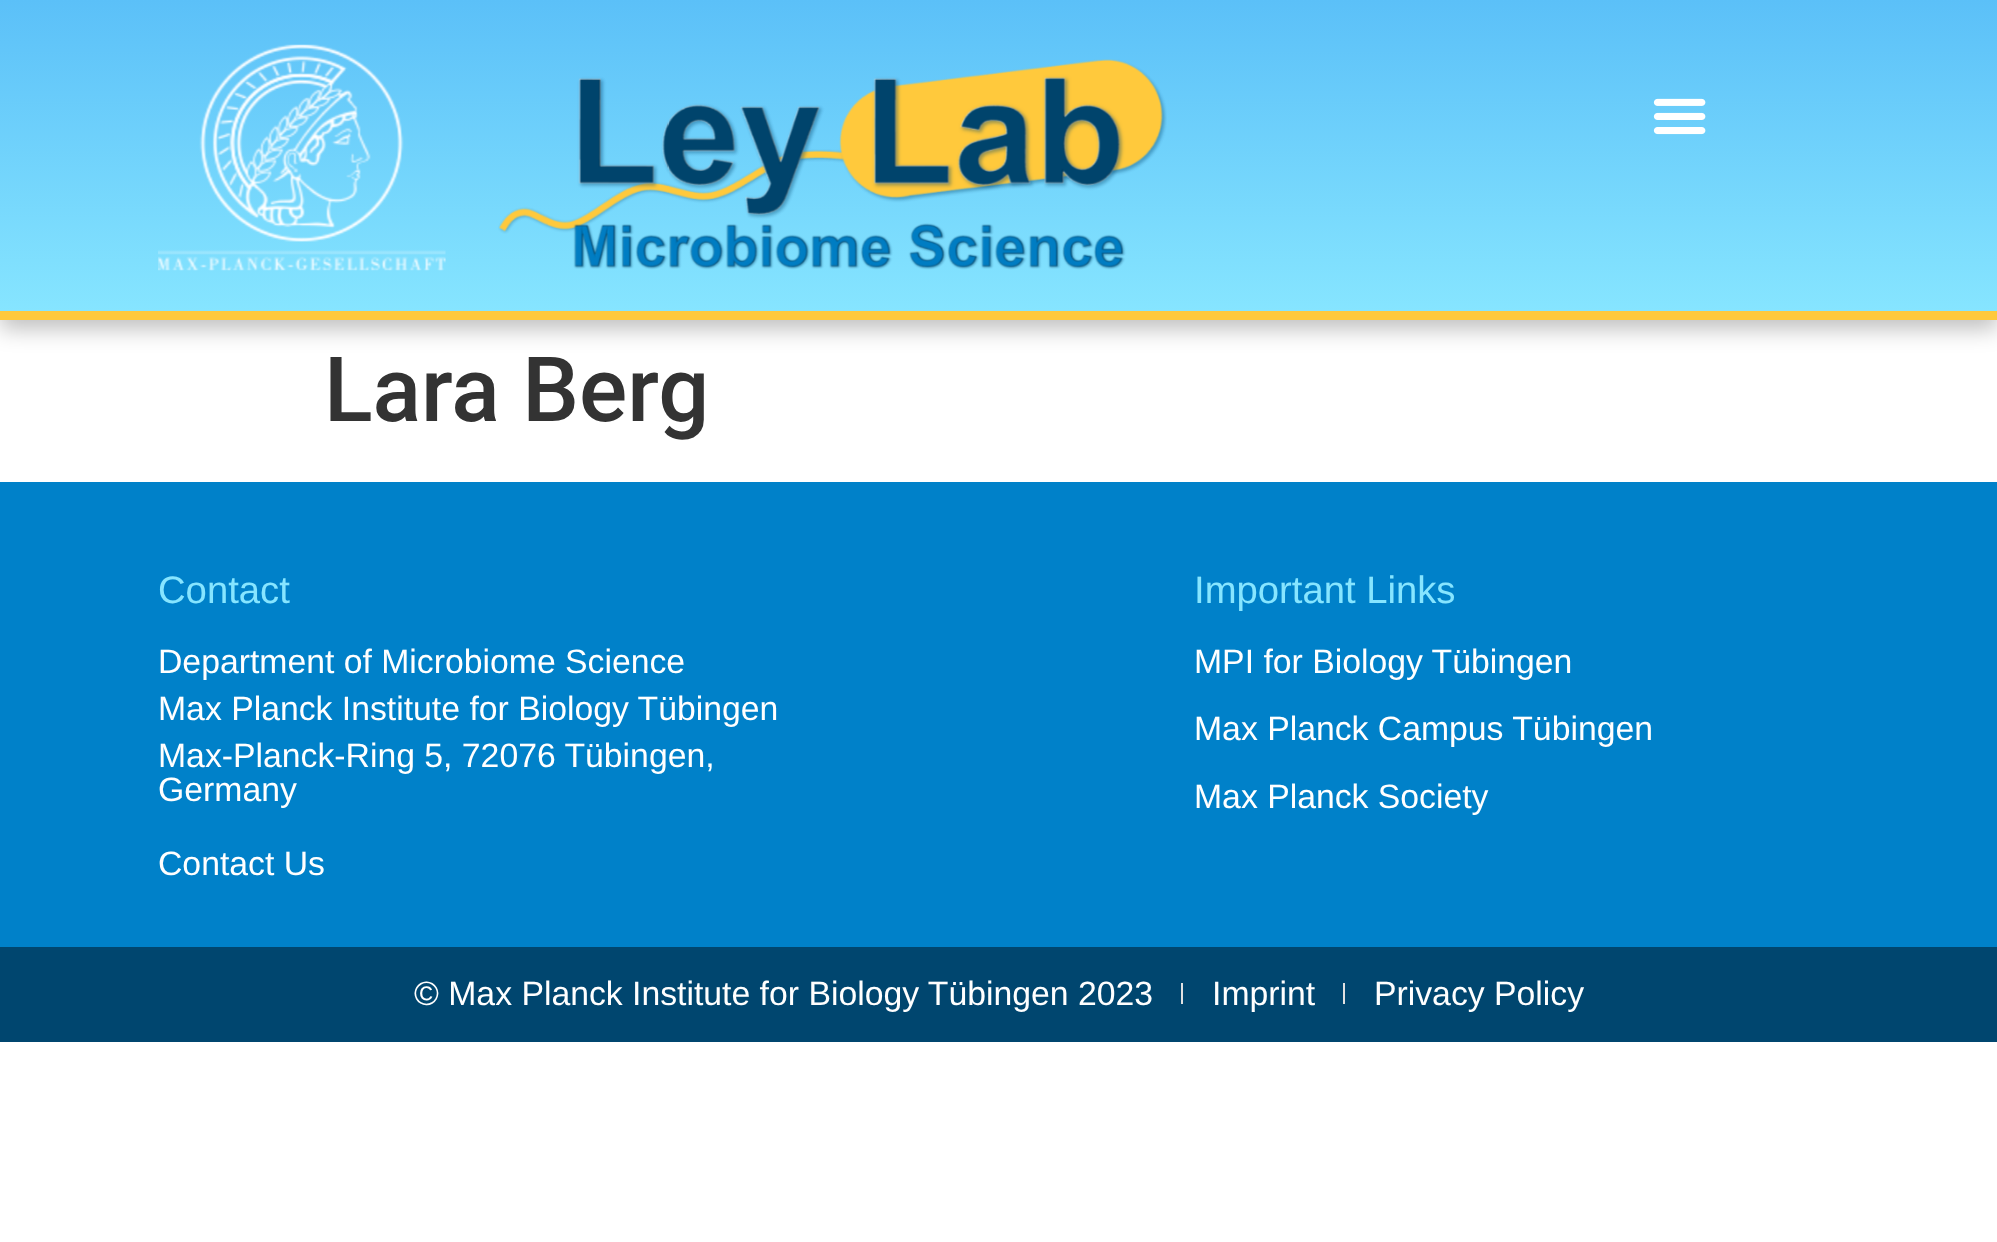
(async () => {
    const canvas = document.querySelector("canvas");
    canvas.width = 1997;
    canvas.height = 1242;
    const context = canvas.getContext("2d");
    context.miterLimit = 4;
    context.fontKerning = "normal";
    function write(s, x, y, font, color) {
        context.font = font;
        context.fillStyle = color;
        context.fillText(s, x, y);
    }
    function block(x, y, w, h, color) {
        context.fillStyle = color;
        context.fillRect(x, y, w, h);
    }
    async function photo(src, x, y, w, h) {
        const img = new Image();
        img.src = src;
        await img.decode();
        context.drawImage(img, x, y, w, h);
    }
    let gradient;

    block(0, 0, 1997, 1242, "rgb(255, 255, 255)");
    context.fillStyle = "rgba(0, 0, 0, 0.25)";
    context.filter = "blur(11px)";
    context.beginPath();
    context.rect(0, 9, 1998, 320);
    context.fill();
    context.filter = "none";
    gradient = context.createLinearGradient(999, 0, 999, 311);
    gradient.addColorStop(0, "rgb(91, 192, 248)");
    gradient.addColorStop(1, "rgb(134, 229, 255)");
    context.fillStyle = gradient;
    context.fillRect(0, 0, 1997, 311);
    block(0, 311, 1997, 9, "rgb(255, 201, 60)");
    await photo("media/1.png", 158, 44, 288, 227);
    await photo("media/2.png", 498, 59, 669, 211);
    await photo("media/3.png", 1653, 98, 53, 37);
    write("Lara Berg", 324, 421, "500 90px Roboto", "rgb(51, 51, 51)");
    block(0, 482, 1997, 465, "rgb(0, 129, 201)");
    write("Contact", 158, 603, "38.25px Liberation Sans", "rgb(134, 229, 255)");
    write("Department of Microbiome Science", 158, 673, "33.75px Liberation Sans", "rgb(255, 255, 255)");
    write("Max Planck Institute for Biology Tübingen", 158, 720, "33.75px Liberation Sans", "rgb(255, 255, 255)");
    write("Max-Planck-Ring 5, 72076 Tübingen,", 158, 767, "33.75px Liberation Sans", "rgb(255, 255, 255)");
    write("Germany", 158, 801, "33.75px Liberation Sans", "rgb(255, 255, 255)");
    write("Contact Us", 158, 875, "33.75px Liberation Sans", "rgb(255, 255, 255)");
    write("Important Links", 1194, 603, "38.25px Liberation Sans", "rgb(134, 229, 255)");
    write("MPI for Biology Tübingen", 1194, 673, "33.75px Liberation Sans", "rgb(255, 255, 255)");
    write("Max Planck Campus Tübingen", 1194, 740, "33.75px Liberation Sans", "rgb(255, 255, 255)");
    write("Max Planck Society", 1194, 808, "33.75px Liberation Sans", "rgb(255, 255, 255)");
    block(0, 947, 1997, 95, "rgb(0, 70, 111)");
    write("© Max Planck Institute for Biology Tübingen 2023", 414, 1005, "33.75px Liberation Sans", "rgb(255, 255, 255)");
    block(1181, 983, 2, 21, "rgb(225, 225, 225)");
    write("Imprint", 1212, 1005, "33.75px Liberation Sans", "rgb(255, 255, 255)");
    block(1343, 983, 2, 21, "rgb(225, 225, 225)");
    write("Privacy Policy", 1374, 1005, "33.75px Liberation Sans", "rgb(255, 255, 255)");
})();
